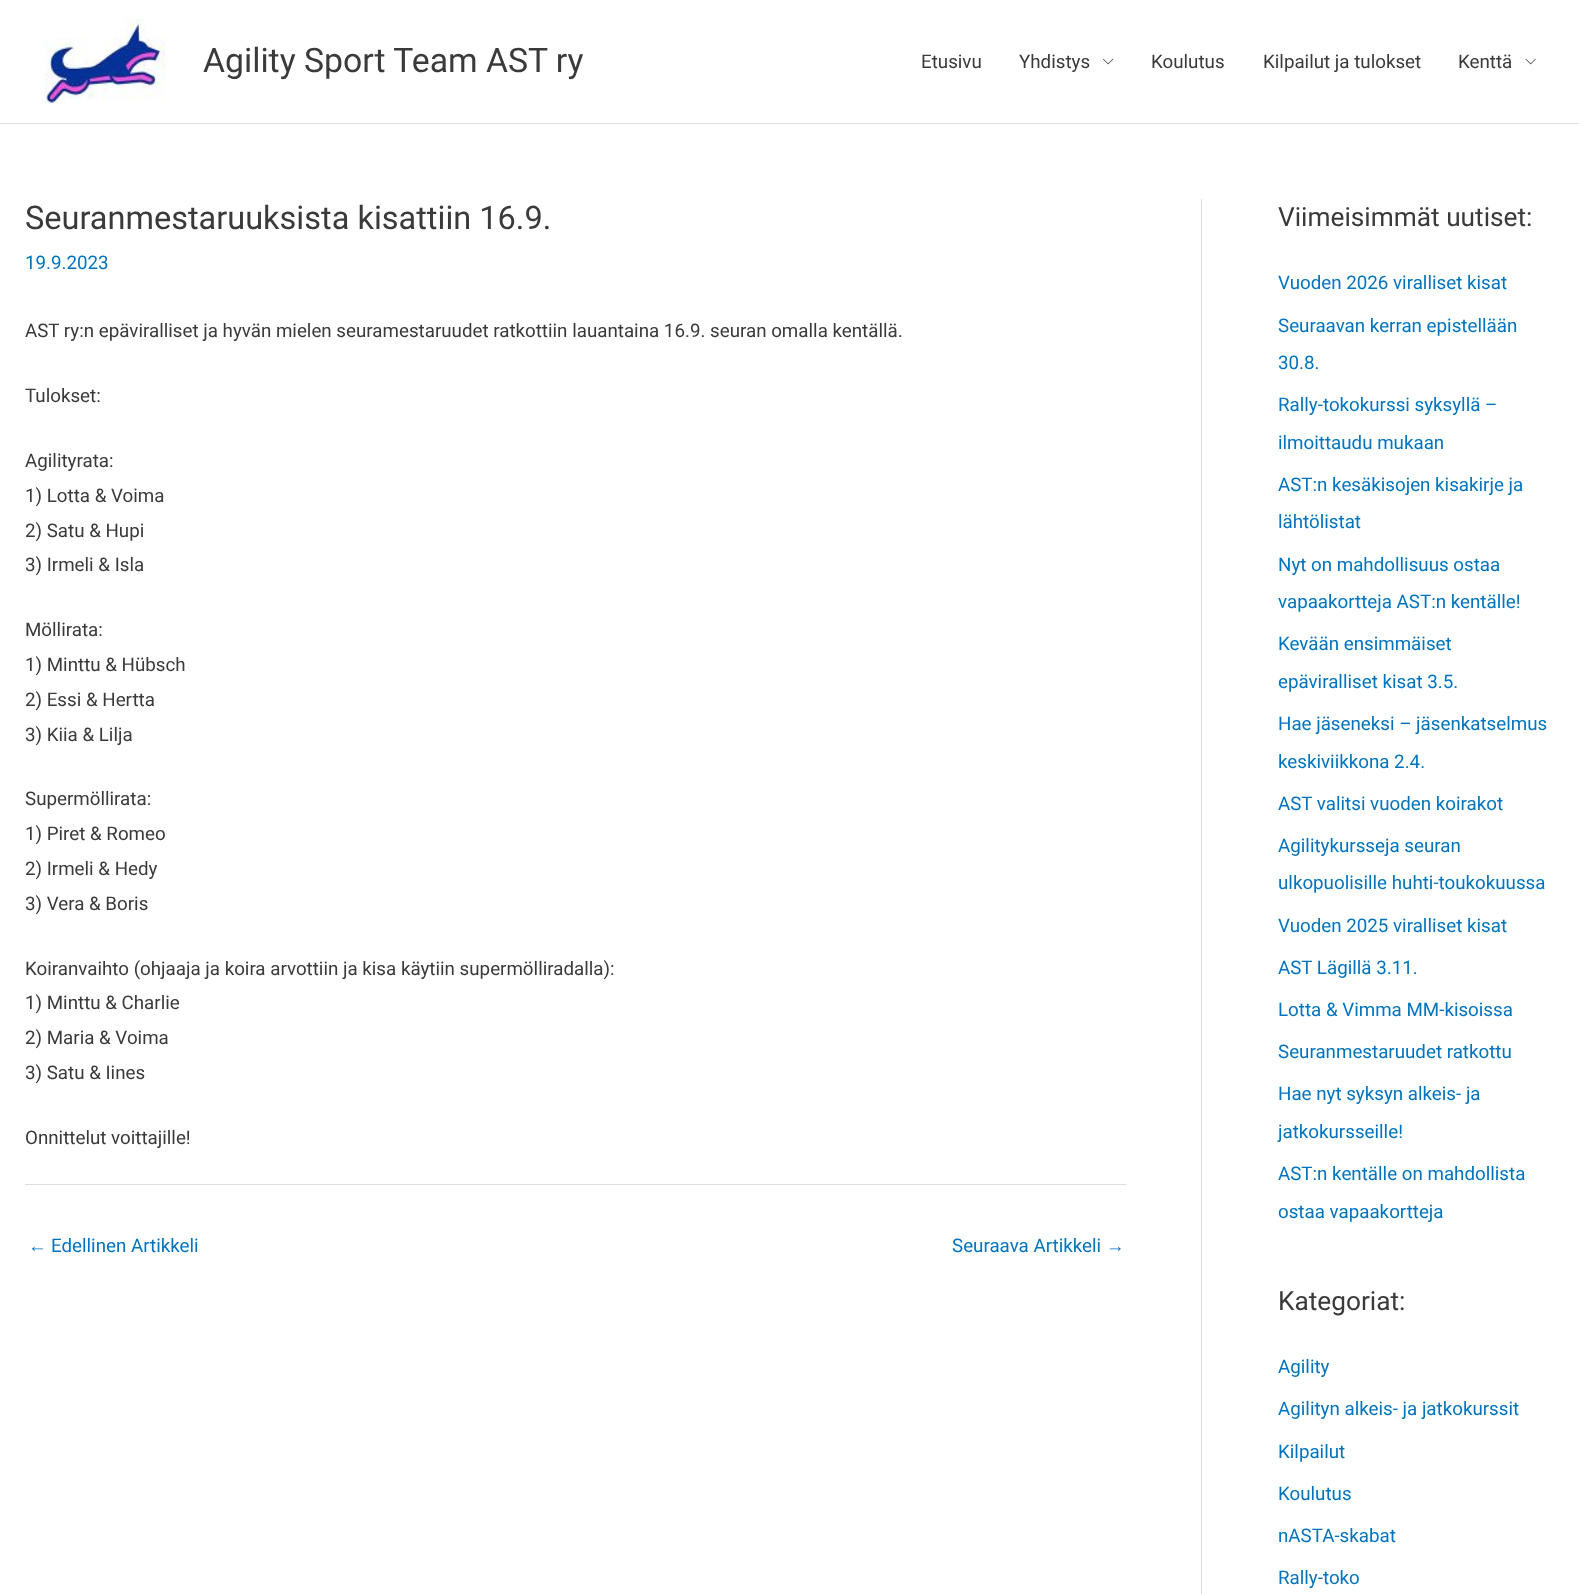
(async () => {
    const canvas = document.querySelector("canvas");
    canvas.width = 1579;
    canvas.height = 1594;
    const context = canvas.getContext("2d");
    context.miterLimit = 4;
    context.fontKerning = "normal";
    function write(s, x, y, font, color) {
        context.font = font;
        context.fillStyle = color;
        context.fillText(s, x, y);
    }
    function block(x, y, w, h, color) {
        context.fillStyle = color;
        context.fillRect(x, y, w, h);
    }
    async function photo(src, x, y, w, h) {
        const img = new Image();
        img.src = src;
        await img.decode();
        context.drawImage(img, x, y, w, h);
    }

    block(0, 0, 1579, 1594, "rgb(255, 255, 255)");
    block(0, 123, 1579, 1, "rgb(221, 221, 221)");
    await photo("media/1.png", 44, 19, 122, 85);
    write("Agility Sport Team AST ry", 203, 72, "33.75px Roboto", "rgb(58, 58, 58)");
    write("Etusivu", 921, 68, "18.75px Roboto", "rgb(58, 58, 58)");
    write("Yhdistys", 1019, 68, "18.75px Roboto", "rgb(58, 58, 58)");
    await photo("media/2.png", 1103, 58, 11, 7);
    write("Koulutus", 1151, 68, "18.75px Roboto", "rgb(58, 58, 58)");
    write("Kilpailut ja tulokset", 1263, 68, "18.75px Roboto", "rgb(58, 58, 58)");
    write("Kenttä", 1458, 68, "18.75px Roboto", "rgb(58, 58, 58)");
    await photo("media/3.png", 1525, 58, 11, 7);
    write("Seuranmestaruuksista kisattiin 16.9.", 25, 229, "32.5px Roboto", "rgb(58, 58, 58)");
    write("19.9.2023", 25, 269, "18.75px Roboto", "rgb(2, 116, 190)");
    write("AST ry:n epäviralliset ja hyvän mielen seuramestaruudet ratkottiin lauantaina 16.9. seuran omalla kentällä.", 25, 337, "18.75px Roboto", "rgb(58, 58, 58)");
    write("Tulokset:", 25, 402, "18.75px Roboto", "rgb(58, 58, 58)");
    write("Agilityrata:", 25, 467, "18.75px Roboto", "rgb(58, 58, 58)");
    write("1) Lotta & Voima", 25, 502, "18.75px Roboto", "rgb(58, 58, 58)");
    write("2) Satu & Hupi", 25, 537, "18.75px Roboto", "rgb(58, 58, 58)");
    write("3) Irmeli & Isla", 25, 571, "18.75px Roboto", "rgb(58, 58, 58)");
    write("Möllirata:", 25, 636, "18.75px Roboto", "rgb(58, 58, 58)");
    write("1) Minttu & Hübsch", 25, 671, "18.75px Roboto", "rgb(58, 58, 58)");
    write("2) Essi & Hertta", 25, 706, "18.75px Roboto", "rgb(58, 58, 58)");
    write("3) Kiia & Lilja", 25, 741, "18.75px Roboto", "rgb(58, 58, 58)");
    write("Supermöllirata:", 25, 805, "18.75px Roboto", "rgb(58, 58, 58)");
    write("1) Piret & Romeo", 25, 840, "18.75px Roboto", "rgb(58, 58, 58)");
    write("2) Irmeli & Hedy", 25, 875, "18.75px Roboto", "rgb(58, 58, 58)");
    write("3) Vera & Boris", 25, 910, "18.75px Roboto", "rgb(58, 58, 58)");
    write("Koiranvaihto (ohjaaja ja koira arvottiin ja kisa käytiin supermölliradalla):", 25, 975, "18.75px Roboto", "rgb(58, 58, 58)");
    write("1) Minttu & Charlie", 25, 1009, "18.75px Roboto", "rgb(58, 58, 58)");
    write("2) Maria & Voima", 25, 1044, "18.75px Roboto", "rgb(58, 58, 58)");
    write("3) Satu & Iines", 25, 1079, "18.75px Roboto", "rgb(58, 58, 58)");
    write("Onnittelut voittajille!", 25, 1144, "18.75px Roboto", "rgb(58, 58, 58)");
    block(25, 1184, 1101, 1, "rgb(221, 221, 221)");
    write("←", 28, 1252, "18.75px Liberation Sans", "rgb(2, 116, 190)");
    write("Edellinen Artikkeli", 51, 1252, "18.75px Roboto", "rgb(2, 116, 190)");
    write("Seuraava Artikkeli", 952, 1252, "18.75px Roboto", "rgb(2, 116, 190)");
    write("→", 1106, 1252, "18.75px Liberation Sans", "rgb(2, 116, 190)");
    block(1201, 199, 1, 1395, "rgb(221, 221, 221)");
    write("Viimeisimmät uutiset:", 1278, 226, "26.25px Roboto", "rgb(58, 58, 58)");
    write("Vuoden 2026 viralliset kisat", 1278, 289, "18.75px Roboto", "rgb(2, 116, 190)");
    write("Seuraavan kerran epistellään", 1278, 332, "18.75px Roboto", "rgb(2, 116, 190)");
    write("30.8.", 1278, 369, "18.75px Roboto", "rgb(2, 116, 190)");
    write("Rally-tokokurssi syksyllä –", 1278, 411, "18.75px Roboto", "rgb(2, 116, 190)");
    write("ilmoittaudu mukaan", 1278, 449, "18.75px Roboto", "rgb(2, 116, 190)");
    write("AST:n kesäkisojen kisakirje ja", 1278, 491, "18.75px Roboto", "rgb(2, 116, 190)");
    write("lähtölistat", 1278, 528, "18.75px Roboto", "rgb(2, 116, 190)");
    write("Nyt on mahdollisuus ostaa", 1278, 571, "18.75px Roboto", "rgb(2, 116, 190)");
    write("vapaakortteja AST:n kentälle!", 1278, 608, "18.75px Roboto", "rgb(2, 116, 190)");
    write("Kevään ensimmäiset", 1278, 650, "18.75px Roboto", "rgb(2, 116, 190)");
    write("epäviralliset kisat 3.5.", 1278, 688, "18.75px Roboto", "rgb(2, 116, 190)");
    write("Hae jäseneksi – jäsenkatselmus", 1278, 730, "18.75px Roboto", "rgb(2, 116, 190)");
    write("keskiviikkona 2.4.", 1278, 768, "18.75px Roboto", "rgb(2, 116, 190)");
    write("AST valitsi vuoden koirakot", 1278, 810, "18.75px Roboto", "rgb(2, 116, 190)");
    write("Agilitykursseja seuran", 1278, 852, "18.75px Roboto", "rgb(2, 116, 190)");
    write("ulkopuolisille huhti-toukokuussa", 1278, 889, "18.75px Roboto", "rgb(2, 116, 190)");
    write("Vuoden 2025 viralliset kisat", 1278, 932, "18.75px Roboto", "rgb(2, 116, 190)");
    write("AST Lägillä 3.11.", 1278, 974, "18.75px Roboto", "rgb(2, 116, 190)");
    write("Lotta & Vimma MM-kisoissa", 1278, 1016, "18.75px Roboto", "rgb(2, 116, 190)");
    write("Seuranmestaruudet ratkottu", 1278, 1058, "18.75px Roboto", "rgb(2, 116, 190)");
    write("Hae nyt syksyn alkeis- ja", 1278, 1100, "18.75px Roboto", "rgb(2, 116, 190)");
    write("jatkokursseille!", 1278, 1138, "18.75px Roboto", "rgb(2, 116, 190)");
    write("AST:n kentälle on mahdollista", 1278, 1180, "18.75px Roboto", "rgb(2, 116, 190)");
    write("ostaa vapaakortteja", 1278, 1218, "18.75px Roboto", "rgb(2, 116, 190)");
    write("Kategoriat:", 1278, 1310, "26.25px Roboto", "rgb(58, 58, 58)");
    write("Agility", 1278, 1373, "18.75px Roboto", "rgb(2, 116, 190)");
    write("Agilityn alkeis- ja jatkokurssit", 1278, 1415, "18.75px Roboto", "rgb(2, 116, 190)");
    write("Kilpailut", 1278, 1458, "18.75px Roboto", "rgb(2, 116, 190)");
    write("Koulutus", 1278, 1500, "18.75px Roboto", "rgb(2, 116, 190)");
    write("nASTA-skabat", 1278, 1542, "18.75px Roboto", "rgb(2, 116, 190)");
    write("Rally-toko", 1278, 1584, "18.75px Roboto", "rgb(2, 116, 190)");
})();
